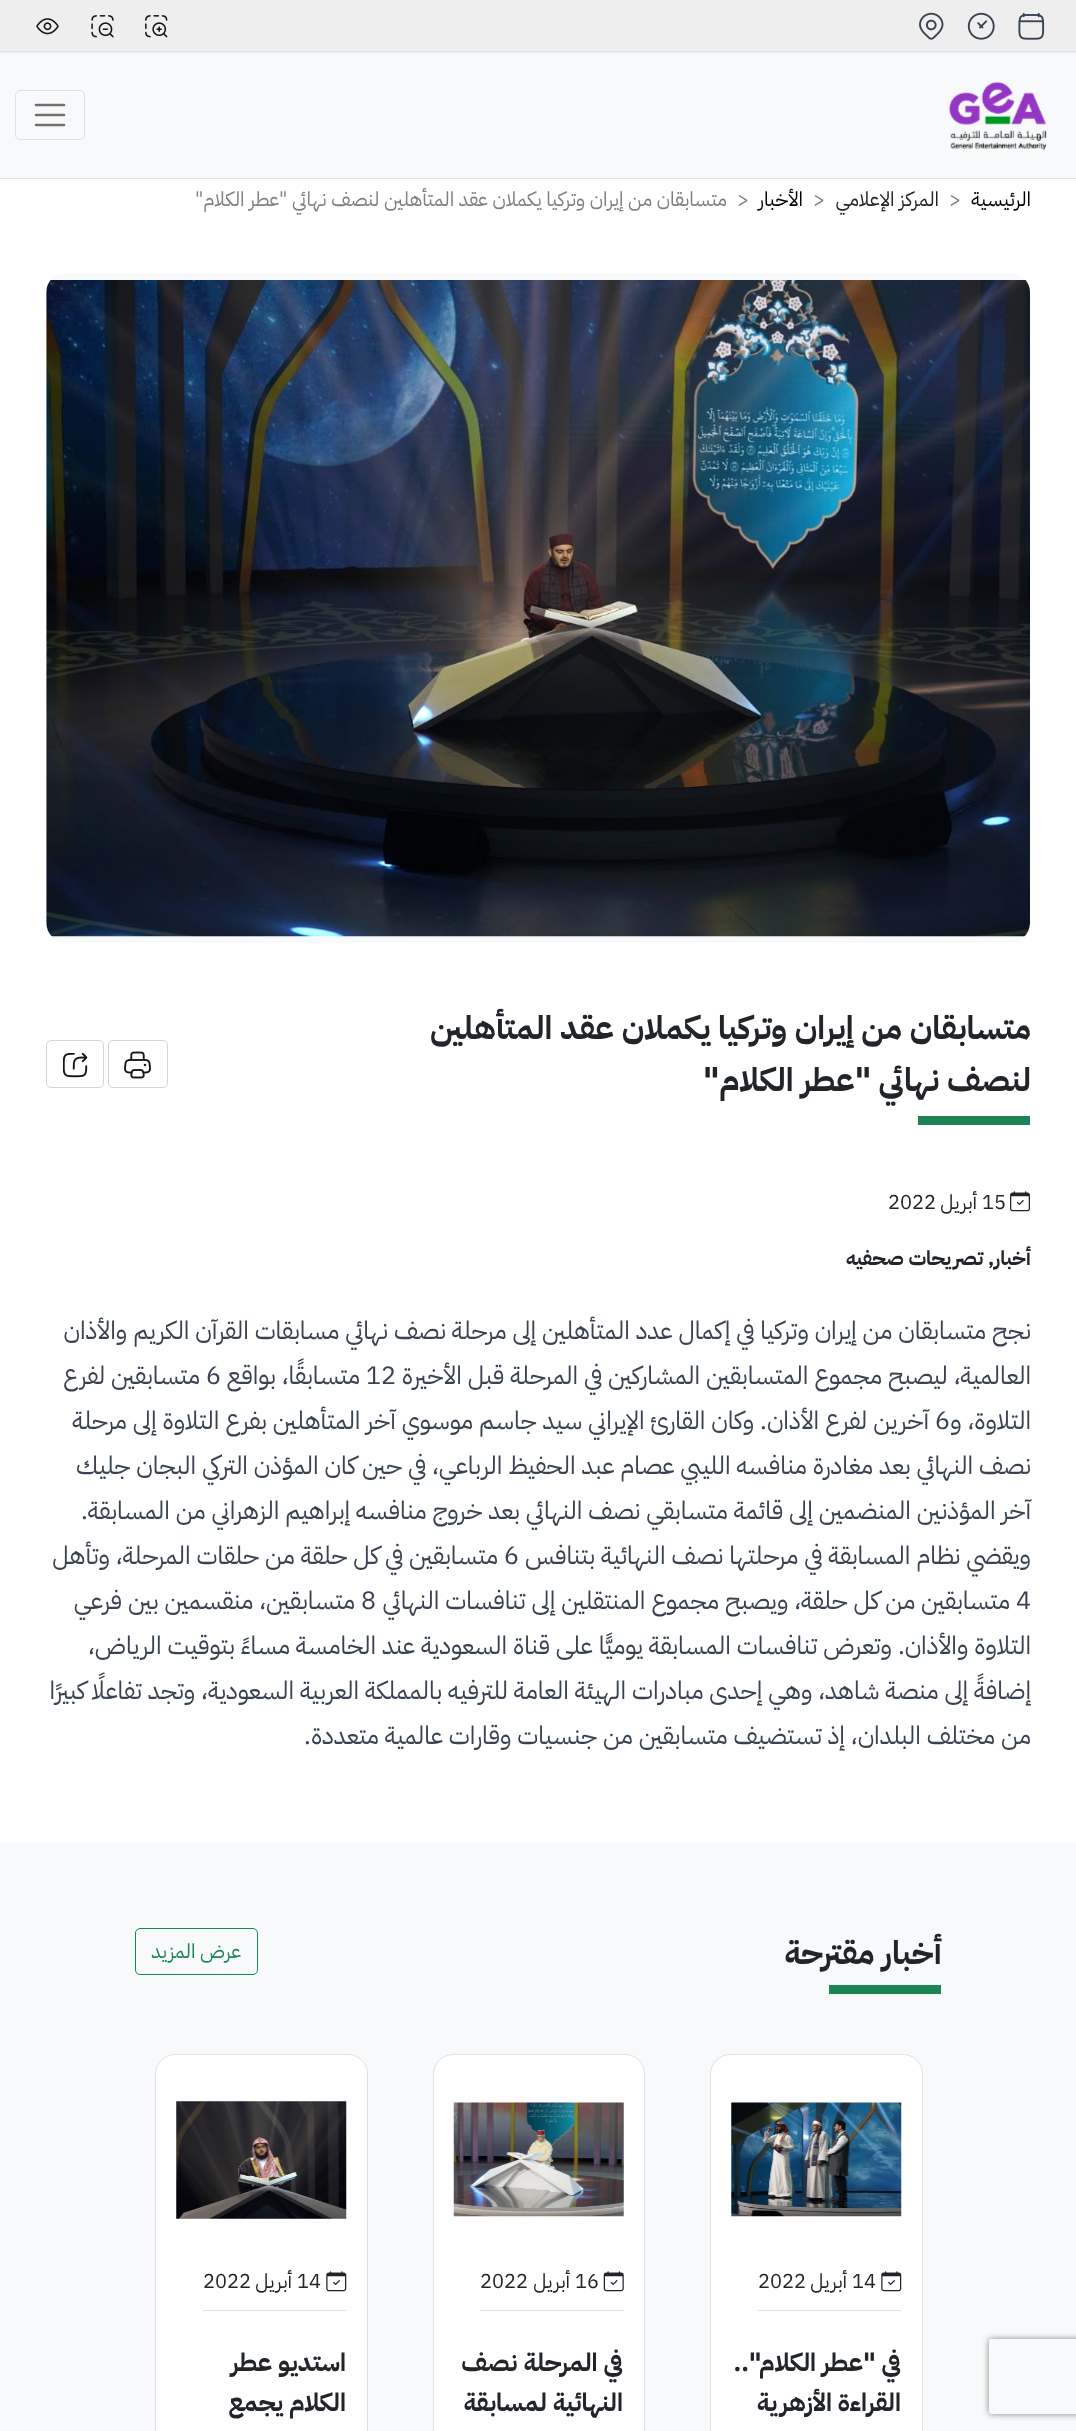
(async () => {
    const canvas = document.querySelector("canvas");
    canvas.width = 1076;
    canvas.height = 2431;
    const context = canvas.getContext("2d");
    context.miterLimit = 4;
    context.fontKerning = "normal";
    function write(s, x, y, font, color) {
        context.font = font;
        context.fillStyle = color;
        context.fillText(s, x, y);
    }
    function block(x, y, w, h, color) {
        context.fillStyle = color;
        context.fillRect(x, y, w, h);
    }
    function card(x, y, w, h, r, color) {
        context.fillStyle = color;
        context.beginPath();
        context.roundRect(x, y, w, h, r);
        context.fill();
    }
    async function photo(src, x, y, w, h) {
        const img = new Image();
        img.src = src;
        await img.decode();
        context.drawImage(img, x, y, w, h);
    }

    block(0, 0, 1076, 2431, "rgb(255, 255, 255)");
    block(0, 53, 1076, 125, "rgb(248, 249, 250)");
    block(0, 178, 1076, 1, "rgb(222, 226, 230)");
    block(0, 0, 1076, 53, "rgb(238, 238, 238)");
    block(0, 51, 1076, 1, "rgb(222, 226, 230)");
    await photo("media/1.png", 1018, 12, 27, 28);
    await photo("media/2.png", 967, 12, 28, 28);
    await photo("media/3.png", 919, 12, 25, 28);
    await photo("media/4.png", 145, 15, 23, 23);
    await photo("media/5.png", 91, 15, 23, 23);
    await photo("media/6.png", 36, 18, 23, 17);
    await photo("media/7.png", 948, 81, 99, 69);
    context.beginPath();
    context.roundRect(15.5, 90.5, 69, 49, 4.5);
    context.strokeStyle = "rgb(223, 224, 225)";
    context.stroke();
    context.beginPath();
    context.moveTo(36, 105);
    context.lineTo(64, 105);
    context.moveTo(36, 115);
    context.lineTo(64, 115);
    context.moveTo(36, 125);
    context.lineTo(64, 125);
    context.strokeStyle = "rgb(112, 112, 113)";
    context.lineWidth = 2.5;
    context.lineCap = "round";
    context.stroke();
    context.direction = "rtl";
    write("الرئيسية", 1031, 206, "20px IBM Plex Sans Arabic", "rgb(0, 0, 0)");
    context.direction = "ltr";
    write(">", 949, 206, "20px IBM Plex Sans Arabic", "rgb(128, 128, 128)");
    context.direction = "rtl";
    write("المركز الإعلامي", 939, 206, "20px IBM Plex Sans Arabic", "rgb(33, 37, 41)");
    context.direction = "ltr";
    write(">", 813, 206, "20px IBM Plex Sans Arabic", "rgb(128, 128, 128)");
    context.direction = "rtl";
    write("الأخبار", 803, 206, "20px IBM Plex Sans Arabic", "rgb(0, 0, 0)");
    context.direction = "ltr";
    write(">", 737, 206, "20px IBM Plex Sans Arabic", "rgb(128, 128, 128)");
    context.direction = "rtl";
    write("متسابقان من إيران وتركيا يكملان عقد المتأهلين لنصف نهائي \"عطر الكلام\"", 727, 206, "20px IBM Plex Sans Arabic", "rgb(128, 128, 128)");
    card(46, 273, 984, 670, 20, "rgb(248, 249, 250)");
    await photo("media/8.png", 46, 280, 984, 657);
    write("متسابقان من إيران وتركيا يكملان عقد المتأهلين", 1031, 1039, "bold 32.5px IBM Plex Sans Arabic", "rgb(33, 37, 41)");
    write("لنصف نهائي \"عطر الكلام\"", 1031, 1091, "bold 32.5px IBM Plex Sans Arabic", "rgb(33, 37, 41)");
    block(918, 1116, 112, 9, "rgb(27, 131, 84)");
    context.beginPath();
    context.roundRect(108.5, 1040.5, 59, 47, 4.5);
    context.strokeStyle = "rgb(210, 214, 219)";
    context.lineWidth = 1;
    context.stroke();
    await photo("media/9.png", 124, 1051, 27, 28);
    context.beginPath();
    context.roundRect(46.5, 1040.5, 57, 47, 4.5);
    context.stroke();
    await photo("media/10.png", 63, 1053, 25, 25);
    await photo("media/11.png", 1010, 1191, 20, 21);
    context.direction = "ltr";
    write("15", 982, 1209, "20px IBM Plex Sans Arabic", "rgb(33, 37, 41)");
    context.direction = "rtl";
    write("أبريل", 977, 1209, "20px IBM Plex Sans Arabic", "rgb(33, 37, 41)");
    context.direction = "ltr";
    write("2022", 888, 1209, "20px IBM Plex Sans Arabic", "rgb(33, 37, 41)");
    context.direction = "rtl";
    write("أخبار, تصريحات صحفيه", 1031, 1265, "bold 20px IBM Plex Sans Arabic", "rgb(33, 37, 41)");
    write("نجح متسابقان من إيران وتركيا في إكمال عدد المتأهلين إلى مرحلة نصف نهائي مسابقات القرآن الكريم والأذان", 1031, 1339, "25px IBM Plex Sans Arabic", "rgb(56, 66, 80)");
    write("العالمية، ليصبح مجموع المتسابقين المشاركين في المرحلة قبل الأخيرة", 1031, 1384, "25px IBM Plex Sans Arabic", "rgb(56, 66, 80)");
    context.direction = "ltr";
    write("12", 366, 1384, "25px IBM Plex Sans Arabic", "rgb(56, 66, 80)");
    context.direction = "rtl";
    write("متسابقًا، بواقع", 360, 1384, "25px IBM Plex Sans Arabic", "rgb(56, 66, 80)");
    context.direction = "ltr";
    write("6", 206, 1384, "25px IBM Plex Sans Arabic", "rgb(56, 66, 80)");
    context.direction = "rtl";
    write("متسابقين لفرع", 200, 1384, "25px IBM Plex Sans Arabic", "rgb(56, 66, 80)");
    write("التلاوة، و", 1031, 1429, "25px IBM Plex Sans Arabic", "rgb(56, 66, 80)");
    context.direction = "ltr";
    write("6", 935, 1429, "25px IBM Plex Sans Arabic", "rgb(56, 66, 80)");
    context.direction = "rtl";
    write("آخرين لفرع الأذان. وكان القارئ الإيراني سيد جاسم موسوي آخر المتأهلين بفرع التلاوة إلى مرحلة", 929, 1429, "25px IBM Plex Sans Arabic", "rgb(56, 66, 80)");
    write("نصف النهائي بعد مغادرة منافسه الليبي عصام عبد الحفيظ الرباعي، في حين كان المؤذن التركي البجان جليك", 1031, 1474, "25px IBM Plex Sans Arabic", "rgb(56, 66, 80)");
    write("آخر المؤذنين المنضمين إلى قائمة متسابقي نصف النهائي بعد خروج منافسه إبراهيم الزهراني من المسابقة.", 1031, 1519, "25px IBM Plex Sans Arabic", "rgb(56, 66, 80)");
    write("ويقضي نظام المسابقة في مرحلتها نصف النهائية بتنافس", 1031, 1564, "25px IBM Plex Sans Arabic", "rgb(56, 66, 80)");
    context.direction = "ltr";
    write("6", 504, 1564, "25px IBM Plex Sans Arabic", "rgb(56, 66, 80)");
    context.direction = "rtl";
    write("متسابقين في كل حلقة من حلقات المرحلة، وتأهل", 498, 1564, "25px IBM Plex Sans Arabic", "rgb(56, 66, 80)");
    context.direction = "ltr";
    write("4", 1016, 1609, "25px IBM Plex Sans Arabic", "rgb(56, 66, 80)");
    context.direction = "rtl";
    write("متسابقين من كل حلقة، ويصبح مجموع المنتقلين إلى تنافسات النهائي", 1010, 1609, "25px IBM Plex Sans Arabic", "rgb(56, 66, 80)");
    context.direction = "ltr";
    write("8", 361, 1609, "25px IBM Plex Sans Arabic", "rgb(56, 66, 80)");
    context.direction = "rtl";
    write("متسابقين، منقسمين بين فرعي", 355, 1609, "25px IBM Plex Sans Arabic", "rgb(56, 66, 80)");
    write("التلاوة والأذان. وتعرض تنافسات المسابقة يوميًّا على قناة السعودية عند الخامسة مساءً بتوقيت الرياض،", 1031, 1654, "25px IBM Plex Sans Arabic", "rgb(56, 66, 80)");
    write("إضافةً إلى منصة شاهد، وهي إحدى مبادرات الهيئة العامة للترفيه بالمملكة العربية السعودية، وتجد تفاعلًا كبيرًا", 1031, 1699, "25px IBM Plex Sans Arabic", "rgb(56, 66, 80)");
    write("من مختلف البلدان، إذ تستضيف متسابقين من جنسيات وقارات عالمية متعددة.", 1031, 1744, "25px IBM Plex Sans Arabic", "rgb(56, 66, 80)");
    block(0, 1843, 1076, 588, "rgb(248, 249, 250)");
    context.save();
    context.beginPath();
    context.moveTo(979, 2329);
    context.lineTo(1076, 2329);
    context.lineTo(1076, 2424);
    context.lineTo(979, 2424);
    context.closePath();
    context.moveTo(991.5, 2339);
    context.lineTo(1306.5, 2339);
    context.bezierCurveTo(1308, 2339, 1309, 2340, 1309, 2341.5);
    context.lineTo(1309, 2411.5);
    context.bezierCurveTo(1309, 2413, 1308, 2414, 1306.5, 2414);
    context.lineTo(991.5, 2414);
    context.bezierCurveTo(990, 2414, 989, 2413, 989, 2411.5);
    context.lineTo(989, 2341.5);
    context.bezierCurveTo(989, 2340, 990, 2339, 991.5, 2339);
    context.closePath();
    context.clip("evenodd");
    context.fillStyle = "rgb(128, 128, 128)";
    context.filter = "blur(3px)";
    context.beginPath();
    context.roundRect(989, 2339, 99, 75, 2.5);
    context.fill();
    context.filter = "none";
    context.restore();
    write("أخبار مقترحة", 942, 1964, "bold 32.5px IBM Plex Sans Arabic", "rgb(33, 37, 41)");
    block(829, 1985, 112, 9, "rgb(27, 131, 84)");
    context.beginPath();
    context.roundRect(135.5, 1928.5, 122, 46, 4.5);
    context.strokeStyle = "rgb(25, 135, 84)";
    context.stroke();
    write("عرض المزيد", 241, 1958, "20px IBM Plex Sans Arabic", "rgb(25, 135, 84)");
    context.fillStyle = "rgb(255, 255, 255)";
    context.beginPath();
    context.roundRect(710.5, 2054.5, 212, 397, 19.5);
    context.fill();
    context.strokeStyle = "rgb(222, 226, 230)";
    context.stroke();
    await photo("media/12.png", 731, 2102, 171, 115);
    block(758, 2310, 143, 1, "rgb(222, 226, 230)");
    await photo("media/13.png", 881, 2271, 21, 21);
    context.direction = "ltr";
    write("14", 852, 2288, "20px IBM Plex Sans Arabic", "rgb(33, 37, 41)");
    context.direction = "rtl";
    write("أبريل", 847, 2288, "20px IBM Plex Sans Arabic", "rgb(33, 37, 41)");
    context.direction = "ltr";
    write("2022", 758, 2288, "20px IBM Plex Sans Arabic", "rgb(33, 37, 41)");
    context.direction = "rtl";
    write("في \"عطر الكلام\"..", 901, 2371, "bold 25px IBM Plex Sans Arabic", "rgb(33, 37, 41)");
    write("القراءة الأزهرية", 901, 2411, "bold 25px IBM Plex Sans Arabic", "rgb(33, 37, 41)");
    context.fillStyle = "rgb(255, 255, 255)";
    context.beginPath();
    context.roundRect(433.5, 2054.5, 211, 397, 19.5);
    context.fill();
    context.stroke();
    await photo("media/14.png", 453, 2102, 171, 115);
    block(480, 2310, 144, 1, "rgb(222, 226, 230)");
    await photo("media/15.png", 603, 2271, 21, 21);
    context.direction = "ltr";
    write("16", 575, 2288, "20px IBM Plex Sans Arabic", "rgb(33, 37, 41)");
    context.direction = "rtl";
    write("أبريل", 570, 2288, "20px IBM Plex Sans Arabic", "rgb(33, 37, 41)");
    context.direction = "ltr";
    write("2022", 480, 2288, "20px IBM Plex Sans Arabic", "rgb(33, 37, 41)");
    context.direction = "rtl";
    write("في المرحلة نصف", 623, 2371, "bold 25px IBM Plex Sans Arabic", "rgb(33, 37, 41)");
    write("النهائية لمسابقة", 623, 2411, "bold 25px IBM Plex Sans Arabic", "rgb(33, 37, 41)");
    context.fillStyle = "rgb(255, 255, 255)";
    context.beginPath();
    context.roundRect(155.5, 2054.5, 212, 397, 19.5);
    context.fill();
    context.stroke();
    await photo("media/16.png", 176, 2101, 171, 118);
    block(203, 2310, 143, 1, "rgb(222, 226, 230)");
    await photo("media/13.png", 326, 2271, 21, 21);
    context.direction = "ltr";
    write("14", 297, 2288, "20px IBM Plex Sans Arabic", "rgb(33, 37, 41)");
    context.direction = "rtl";
    write("أبريل", 292, 2288, "20px IBM Plex Sans Arabic", "rgb(33, 37, 41)");
    context.direction = "ltr";
    write("2022", 203, 2288, "20px IBM Plex Sans Arabic", "rgb(33, 37, 41)");
    context.direction = "rtl";
    write("استديو عطر", 346, 2371, "bold 25px IBM Plex Sans Arabic", "rgb(33, 37, 41)");
    write("الكلام يجمع", 346, 2411, "bold 25px IBM Plex Sans Arabic", "rgb(33, 37, 41)");
})();
